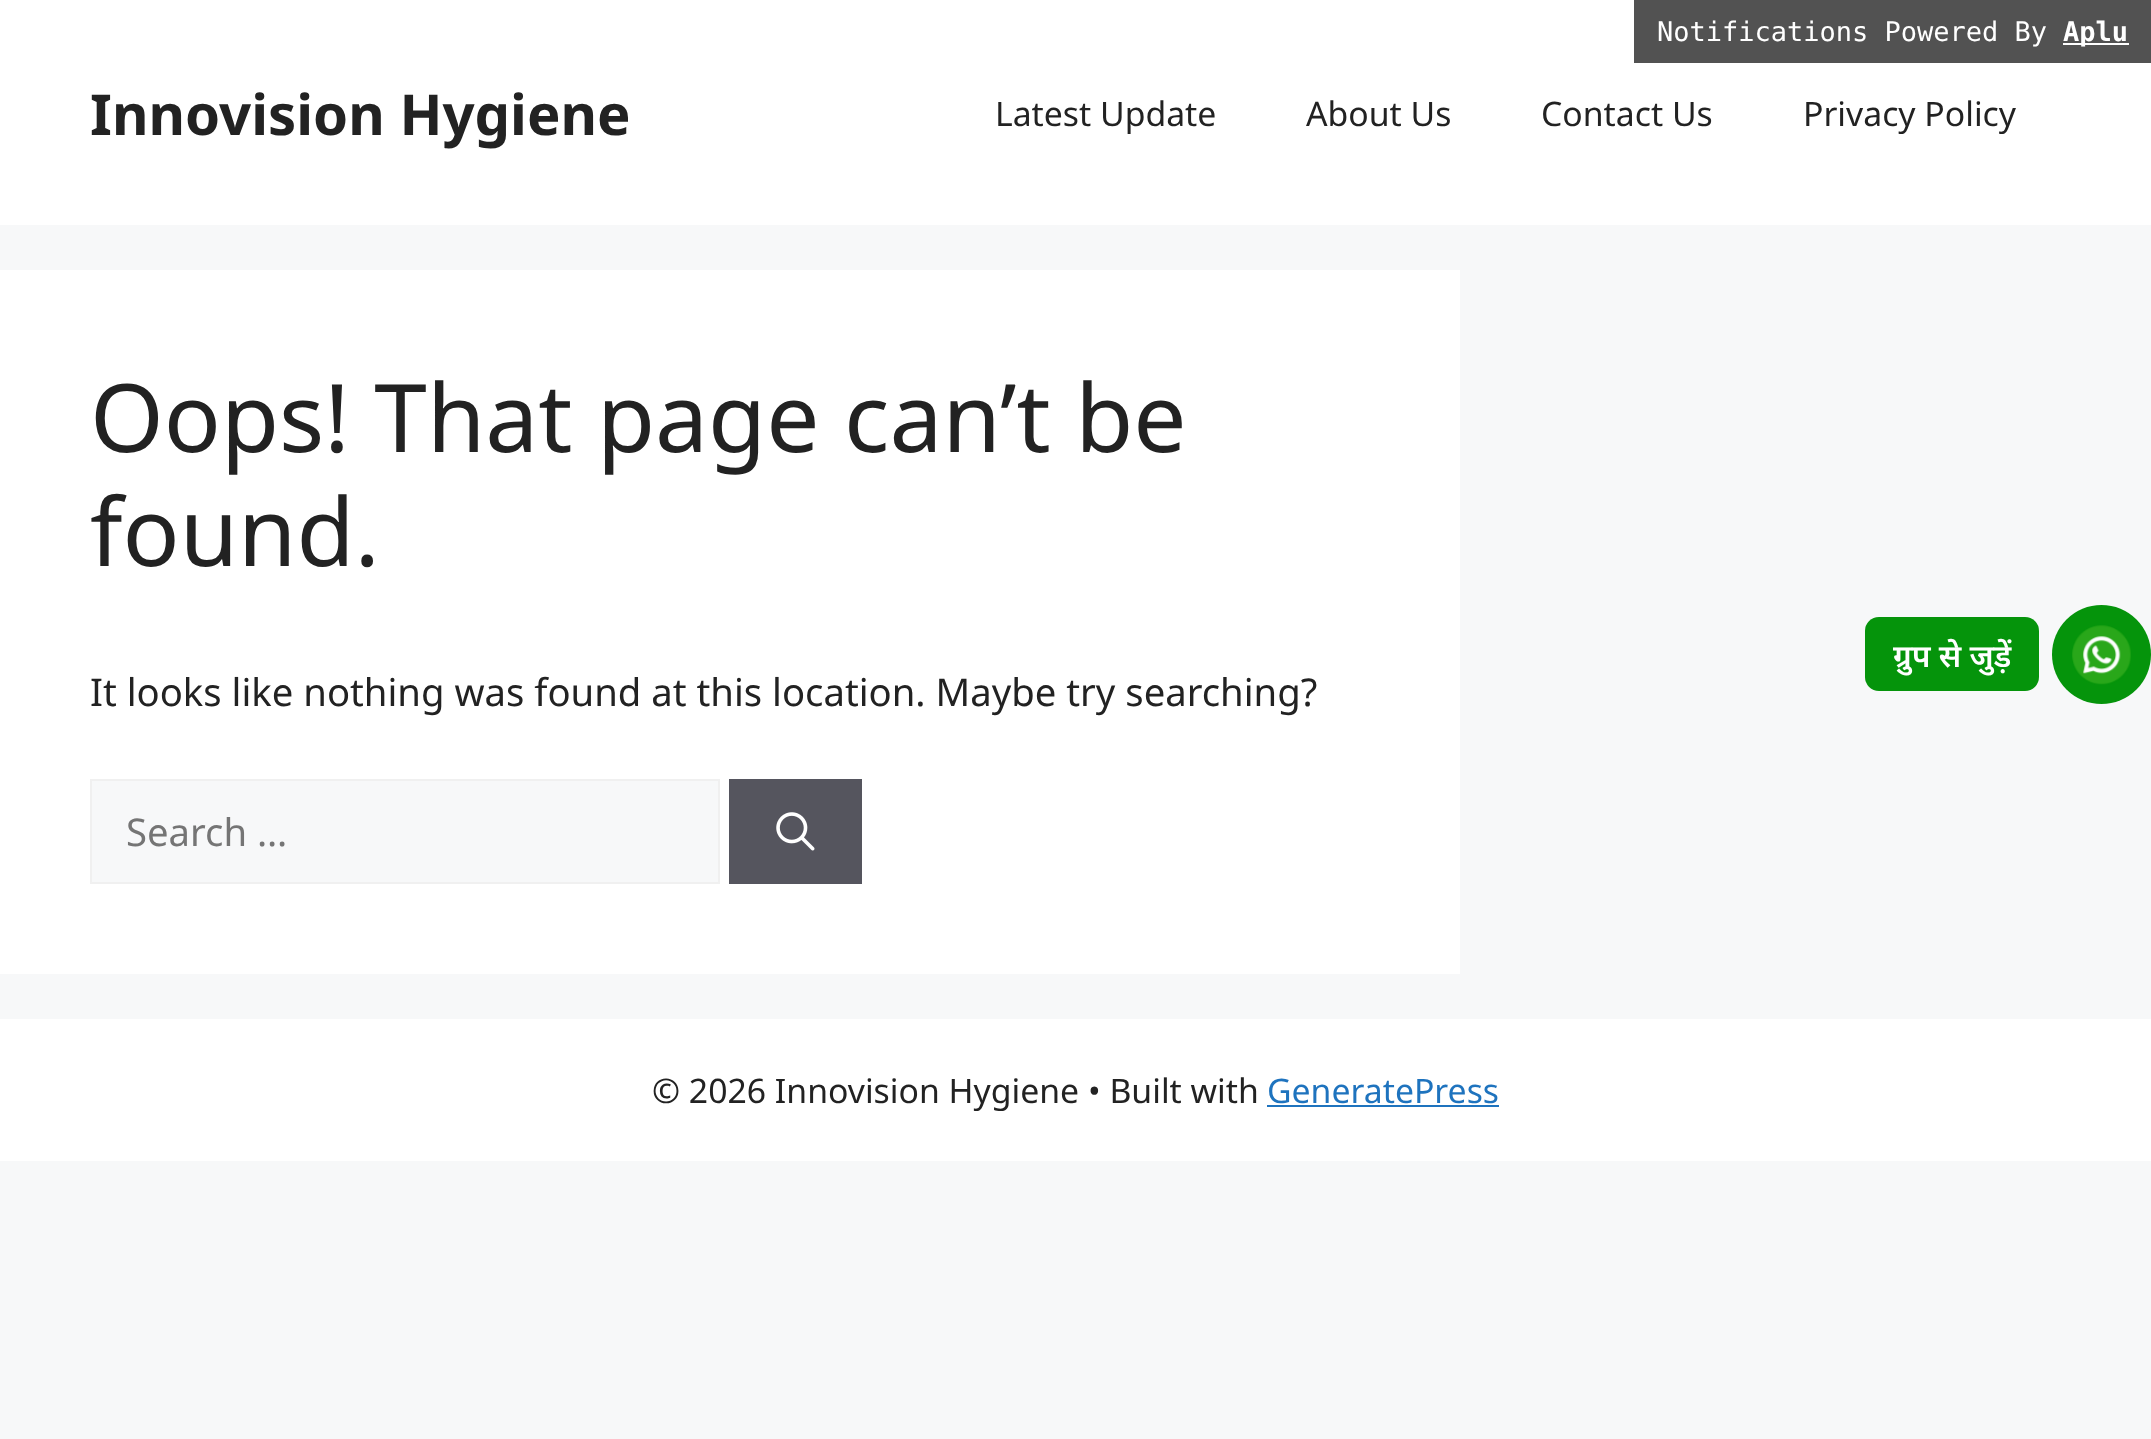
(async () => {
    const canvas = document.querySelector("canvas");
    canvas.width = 2151;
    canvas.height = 1439;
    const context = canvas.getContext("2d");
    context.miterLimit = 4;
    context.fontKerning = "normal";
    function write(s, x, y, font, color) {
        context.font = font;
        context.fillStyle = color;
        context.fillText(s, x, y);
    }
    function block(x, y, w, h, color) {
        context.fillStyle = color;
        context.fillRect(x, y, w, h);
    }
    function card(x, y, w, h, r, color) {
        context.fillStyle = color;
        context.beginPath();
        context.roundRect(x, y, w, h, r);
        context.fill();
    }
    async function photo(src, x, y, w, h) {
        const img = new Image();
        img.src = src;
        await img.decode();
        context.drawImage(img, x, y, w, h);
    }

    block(0, 0, 2151, 1439, "rgb(247, 248, 249)");
    block(0, 0, 2151, 225, "rgb(255, 255, 255)");
    block(1634, 0, 517, 63, "rgb(82, 82, 82)");
    write("Notifications Powered By", 1657, 41, "27px DejaVu Sans Mono", "rgb(255, 255, 255)");
    block(2063, 43, 66, 2, "rgb(255, 255, 255)");
    write("Aplu", 2063, 41, "bold 27px DejaVu Sans Mono", "rgb(255, 255, 255)");
    write("Innovision Hygiene", 90, 135, "bold 56.25px Noto Sans", "rgb(34, 34, 34)");
    write("Latest Update", 995, 126, "33.75px Noto Sans", "rgb(34, 34, 34)");
    write("About Us", 1306, 126, "33.75px Noto Sans", "rgb(34, 34, 34)");
    write("Contact Us", 1541, 126, "33.75px Noto Sans", "rgb(34, 34, 34)");
    write("Privacy Policy", 1803, 126, "33.75px Noto Sans", "rgb(34, 34, 34)");
    block(0, 270, 1460, 704, "rgb(255, 255, 255)");
    write("Oops! That page can’t be", 90, 452, "94.5px Noto Sans", "rgb(34, 34, 34)");
    write("found.", 90, 566, "94.5px Noto Sans", "rgb(34, 34, 34)");
    write("It looks like nothing was found at this location. Maybe try searching?", 90, 706, "38.25px Noto Sans", "rgb(34, 34, 34)");
    context.fillStyle = "rgb(247, 248, 249)";
    context.beginPath();
    context.rect(91, 780, 628, 103);
    context.fill();
    context.strokeStyle = "rgb(240, 240, 240)";
    context.lineWidth = 2;
    context.stroke();
    write("Search …", 126, 846, "38.25px Noto Sans", "rgb(117, 117, 117)");
    block(729, 779, 133, 105, "rgb(85, 85, 94)");
    await photo("media/1.png", 776, 812, 39, 39);
    card(1865, 617, 174, 74, 14, "rgb(5, 148, 11)");
    write("ग्रुप से जुड़ें", 1893, 667, "600 31.5px Noto Sans", "rgb(255, 255, 255)");
    context.fillStyle = "rgb(5, 148, 11)";
    context.beginPath();
    context.arc(2101.5, 654.5, 49.5, 0, Math.PI * 2);
    context.fill();
    await photo("media/2.png", 2072, 625, 59, 60);
    block(0, 1019, 2151, 142, "rgb(255, 255, 255)");
    write("© 2026 Innovision Hygiene • Built with", 652, 1103, "33.75px Noto Sans", "rgb(34, 34, 34)");
    write("GeneratePress", 1267, 1103, "33.75px Noto Sans", "rgb(30, 115, 190)");
    block(1267, 1105, 232, 2, "rgb(30, 115, 190)");
})();
